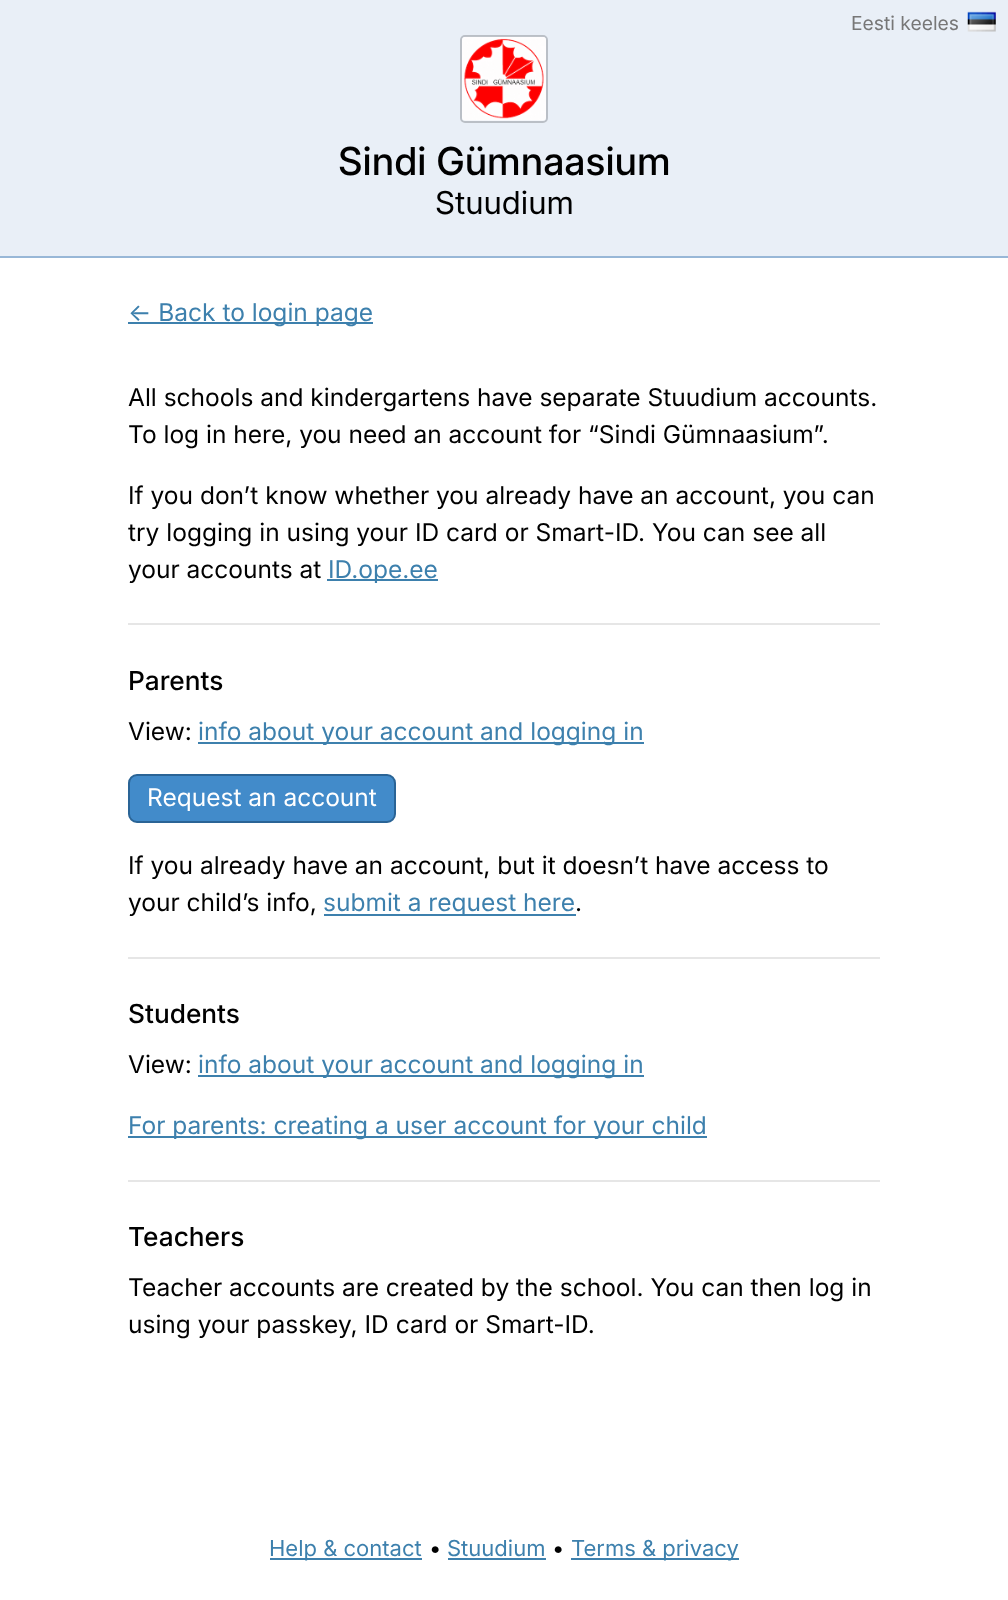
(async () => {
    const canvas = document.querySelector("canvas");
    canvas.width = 1008;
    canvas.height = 1600;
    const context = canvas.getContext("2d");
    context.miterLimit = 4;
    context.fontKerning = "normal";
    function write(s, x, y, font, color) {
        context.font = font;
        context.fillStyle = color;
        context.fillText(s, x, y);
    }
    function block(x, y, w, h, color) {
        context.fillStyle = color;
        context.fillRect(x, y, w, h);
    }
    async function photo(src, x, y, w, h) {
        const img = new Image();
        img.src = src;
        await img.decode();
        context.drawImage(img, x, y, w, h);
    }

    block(0, 0, 1008, 1600, "rgb(255, 255, 255)");
    block(0, 0, 1008, 256, "rgb(233, 239, 247)");
    block(0, 256, 1008, 2, "rgb(152, 183, 215)");
    write("Eesti keeles", 851, 30, "19.25px 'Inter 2'", "rgb(119, 119, 119)");
    await photo("media/1.png", 967, 11, 29, 21);
    context.beginPath();
    context.roundRect(461, 36, 86, 86, 4);
    context.strokeStyle = "rgb(186, 191, 198)";
    context.lineWidth = 2;
    context.stroke();
    await photo("media/2.png", 462, 36, 84, 85);
    write("Sindi Gümnaasium", 338, 175, "500 38.5px Inter", "rgb(0, 0, 0)");
    write("Stuudium", 435, 214, "31.5px Inter", "rgb(0, 0, 0)");
    block(128, 322, 245, 2, "rgb(61, 128, 173)");
    write("← Back to login page", 128, 321, "24.5px 'Inter 2'", "rgb(61, 128, 173)");
    write("All schools and kindergartens have separate Stuudium accounts.", 128, 406, "24.5px 'Inter 2'", "rgb(0, 0, 0)");
    write("To log in here, you need an account for “Sindi Gümnaasium”.", 128, 443, "24.5px 'Inter 2'", "rgb(0, 0, 0)");
    write("If you don’t know whether you already have an account, you can", 128, 504, "24.5px 'Inter 2'", "rgb(0, 0, 0)");
    write("try logging in using your ID card or Smart-ID. You can see all", 128, 541, "24.5px 'Inter 2'", "rgb(0, 0, 0)");
    write("your accounts at", 128, 578, "24.5px 'Inter 2'", "rgb(0, 0, 0)");
    block(327, 579, 111, 2, "rgb(61, 128, 173)");
    write("ID.ope.ee", 328, 578, "24.5px 'Inter 2'", "rgb(61, 128, 173)");
    block(128, 623, 752, 2, "rgb(230, 230, 230)");
    write("Parents", 128, 690, "500 26.25px 'Inter 2'", "rgb(0, 0, 0)");
    write("View:", 128, 740, "24.5px 'Inter 2'", "rgb(0, 0, 0)");
    block(198, 742, 446, 2, "rgb(61, 128, 173)");
    write("info about your account and logging in", 198, 740, "24.5px 'Inter 2'", "rgb(61, 128, 173)");
    context.fillStyle = "rgb(66, 139, 202)";
    context.beginPath();
    context.roundRect(129, 775, 266, 47, 8);
    context.fill();
    context.strokeStyle = "rgb(42, 100, 150)";
    context.stroke();
    write("Request an account", 147, 806, "24.5px 'Inter 2'", "rgb(255, 255, 255)");
    write("If you already have an account, but it doesn’t have access to", 128, 874, "24.5px 'Inter 2'", "rgb(0, 0, 0)");
    write("your child’s info,", 128, 911, "24.5px 'Inter 2'", "rgb(0, 0, 0)");
    block(324, 914, 252, 2, "rgb(61, 128, 173)");
    write("submit a request here", 323, 911, "24.5px 'Inter 2'", "rgb(61, 128, 173)");
    write(".", 575, 911, "24.5px 'Inter 2'", "rgb(0, 0, 0)");
    block(128, 957, 752, 2, "rgb(230, 230, 230)");
    write("Students", 128, 1023, "500 26.25px 'Inter 2'", "rgb(0, 0, 0)");
    write("View:", 128, 1073, "24.5px 'Inter 2'", "rgb(0, 0, 0)");
    block(198, 1075, 446, 2, "rgb(61, 128, 173)");
    write("info about your account and logging in", 198, 1073, "24.5px 'Inter 2'", "rgb(61, 128, 173)");
    block(128, 1136, 579, 2, "rgb(61, 128, 173)");
    write("For parents: creating a user account for your child", 128, 1134, "24.5px 'Inter 2'", "rgb(61, 128, 173)");
    block(128, 1180, 752, 2, "rgb(230, 230, 230)");
    write("Teachers", 128, 1246, "500 26.25px 'Inter 2'", "rgb(0, 0, 0)");
    write("Teacher accounts are created by the school. You can then log in", 128, 1296, "24.5px 'Inter 2'", "rgb(0, 0, 0)");
    write("using your passkey, ID card or Smart-ID.", 128, 1333, "24.5px 'Inter 2'", "rgb(0, 0, 0)");
    block(270, 1558, 152, 2, "rgb(61, 128, 173)");
    write("Help & contact", 269, 1556, "22px 'Inter 2'", "rgb(61, 128, 173)");
    write("•", 429, 1556, "22px 'Inter 2'", "rgb(0, 0, 0)");
    write("Stuudium", 447, 1556, "22px 'Inter 2'", "rgb(61, 128, 173)");
    block(448, 1558, 98, 2, "rgb(61, 128, 173)");
    write("•", 552, 1556, "22px 'Inter 2'", "rgb(0, 0, 0)");
    block(571, 1558, 168, 2, "rgb(61, 128, 173)");
    write("Terms & privacy", 571, 1556, "22px 'Inter 2'", "rgb(61, 128, 173)");
})();
